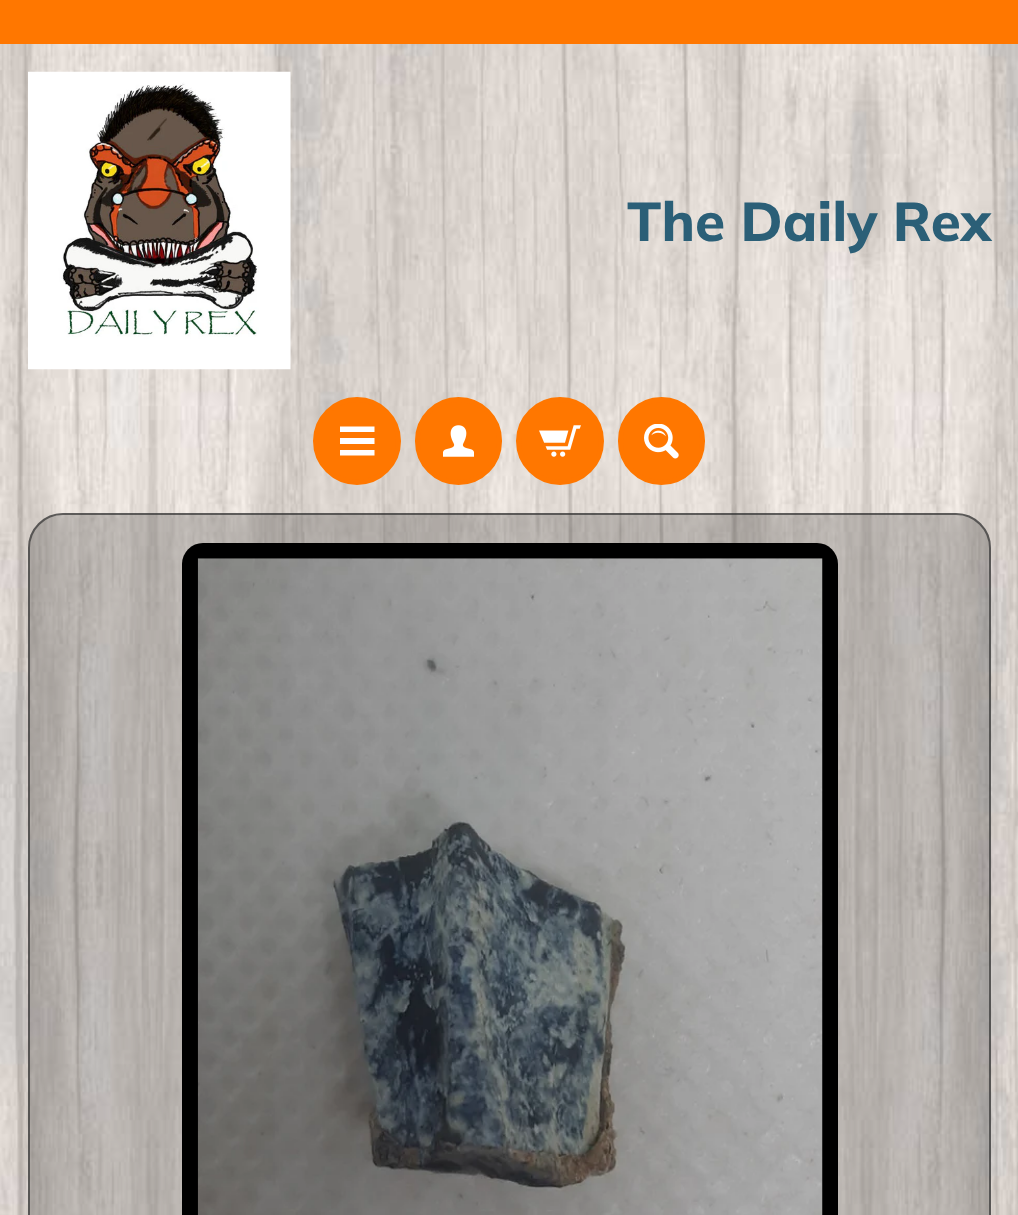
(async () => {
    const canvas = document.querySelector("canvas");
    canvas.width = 1018;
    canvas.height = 1215;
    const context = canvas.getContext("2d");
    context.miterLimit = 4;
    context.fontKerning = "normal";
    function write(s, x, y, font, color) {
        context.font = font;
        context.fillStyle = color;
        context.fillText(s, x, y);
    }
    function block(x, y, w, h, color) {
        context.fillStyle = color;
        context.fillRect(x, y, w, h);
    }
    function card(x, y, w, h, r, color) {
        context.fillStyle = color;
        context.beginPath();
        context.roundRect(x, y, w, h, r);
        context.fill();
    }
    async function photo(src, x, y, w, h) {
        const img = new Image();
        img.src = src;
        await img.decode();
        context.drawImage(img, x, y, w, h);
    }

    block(0, 0, 1018, 1215, "rgb(255, 255, 255)");
    await photo("media/1.png", 0, 44, 1018, 1171);
    block(0, 0, 1018, 44, "rgb(255, 119, 0)");
    await photo("media/2.png", 28, 71, 263, 299);
    write("The Daily Rex", 627, 241, "800 54.75px Muli", "rgb(43, 95, 119)");
    context.fillStyle = "rgb(255, 119, 0)";
    context.beginPath();
    context.arc(357, 441, 41.5, 0, Math.PI * 2);
    context.fill();
    context.strokeStyle = "rgb(255, 119, 0)";
    context.lineWidth = 5;
    context.stroke();
    context.save();
    context.beginPath();
    context.rect(340, 424, 35, 35);
    context.clip();
    context.fillStyle = "rgb(255, 255, 255)";
    context.beginPath();
    context.moveTo(374.5, 432);
    context.lineTo(339.5, 432);
    context.lineTo(339.5, 426.5);
    context.lineTo(374.5, 426.5);
    context.closePath();
    context.moveTo(374.5, 438);
    context.lineTo(339.5, 438);
    context.lineTo(339.5, 444);
    context.lineTo(374.5, 444);
    context.closePath();
    context.moveTo(374.5, 450);
    context.lineTo(339.5, 450);
    context.lineTo(339.5, 455.5);
    context.lineTo(374.5, 455.5);
    context.closePath();
    context.fill();
    context.restore();
    context.beginPath();
    context.roundRect(417.5, 399.5, 82, 83, 41);
    context.fill();
    context.stroke();
    await photo("media/3.png", 443, 425, 31, 32);
    context.beginPath();
    context.arc(560, 441, 41.5, 0, Math.PI * 2);
    context.fill();
    context.stroke();
    await photo("media/4.png", 539, 425, 42, 32);
    context.beginPath();
    context.roundRect(620.5, 399.5, 82, 83, 41);
    context.fill();
    context.stroke();
    await photo("media/5.png", 644, 424, 35, 35);
    card(28, 513, 963, 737, 35, "rgba(51, 51, 51, 0.25)");
    context.beginPath();
    context.roundRect(29, 514, 961, 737, 34);
    context.strokeStyle = "rgba(51, 51, 51, 0.7)";
    context.lineWidth = 2;
    context.stroke();
    card(182, 543, 656, 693, 21, "rgb(0, 0, 0)");
    await photo("media/6.png", 197, 558, 626, 657);
})();
